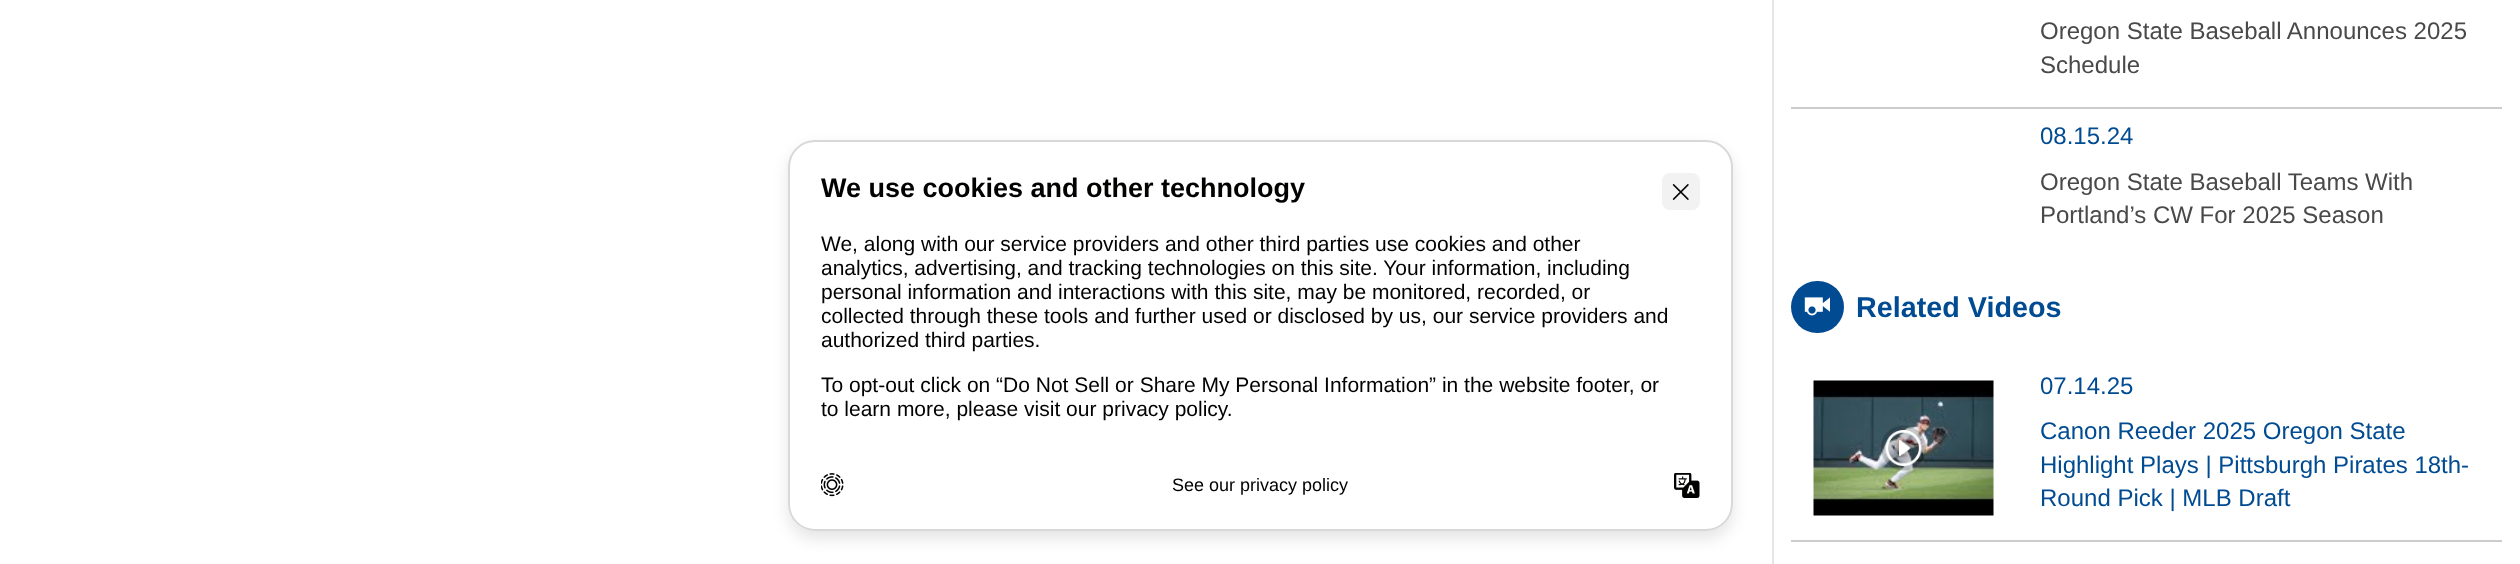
(async () => {
    const canvas = document.querySelector("canvas");
    canvas.width = 2520;
    canvas.height = 564;
    const context = canvas.getContext("2d");
    context.miterLimit = 4;
    context.fontKerning = "normal";
    function write(s, x, y, font, color) {
        context.font = font;
        context.fillStyle = color;
        context.fillText(s, x, y);
    }
    function block(x, y, w, h, color) {
        context.fillStyle = color;
        context.fillRect(x, y, w, h);
    }
    function card(x, y, w, h, r, color) {
        context.fillStyle = color;
        context.beginPath();
        context.roundRect(x, y, w, h, r);
        context.fill();
    }
    async function photo(src, x, y, w, h) {
        const img = new Image();
        img.src = src;
        await img.decode();
        context.drawImage(img, x, y, w, h);
    }

    block(0, 0, 2520, 564, "rgb(255, 255, 255)");
    context.save();
    context.beginPath();
    context.moveTo(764, 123);
    context.lineTo(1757, 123);
    context.lineTo(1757, 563);
    context.lineTo(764, 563);
    context.closePath();
    context.moveTo(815, 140);
    context.lineTo(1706, 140);
    context.bezierCurveTo(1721, 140, 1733, 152, 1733, 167);
    context.lineTo(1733, 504);
    context.bezierCurveTo(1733, 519, 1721, 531, 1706, 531);
    context.lineTo(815, 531);
    context.bezierCurveTo(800, 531, 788, 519, 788, 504);
    context.lineTo(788, 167);
    context.bezierCurveTo(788, 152, 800, 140, 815, 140);
    context.closePath();
    context.clip("evenodd");
    context.fillStyle = "rgba(0, 0, 0, 0.1)";
    context.filter = "blur(7.5px)";
    context.beginPath();
    context.roundRect(788, 147, 945, 392, 27);
    context.fill();
    context.filter = "none";
    context.restore();
    context.fillStyle = "rgba(255, 255, 255, 0.9)";
    context.beginPath();
    context.roundRect(789, 141, 943, 389, 26);
    context.fill();
    context.strokeStyle = "rgb(216, 216, 216)";
    context.lineWidth = 2;
    context.stroke();
    write("We use cookies and other technology", 821, 197, "bold 27px Liberation Sans", "rgb(1, 1, 0)");
    write("We, along with our service providers and other third parties use cookies and other", 821, 251, "21px Liberation Sans", "rgb(1, 1, 0)");
    write("analytics, advertising, and tracking technologies on this site. Your information, including", 821, 275, "21px Liberation Sans", "rgb(1, 1, 0)");
    write("personal information and interactions with this site, may be monitored, recorded, or", 821, 299, "21px Liberation Sans", "rgb(1, 1, 0)");
    write("collected through these tools and further used or disclosed by us, our service providers and", 821, 323, "21px Liberation Sans", "rgb(1, 1, 0)");
    write("authorized third parties.", 821, 347, "21px Liberation Sans", "rgb(1, 1, 0)");
    write("To opt-out click on “Do Not Sell or Share My Personal Information” in the website footer, or", 821, 392, "21px Liberation Sans", "rgb(1, 1, 0)");
    write("to learn more, please visit our privacy policy.", 821, 416, "21px Liberation Sans", "rgb(1, 1, 0)");
    card(1662, 173, 38, 37, 8, "rgb(242, 242, 242)");
    await photo("media/1.png", 1672, 184, 17, 16);
    await photo("media/2.png", 821, 473, 23, 24);
    write("See our privacy policy", 1172, 491, "18px Liberation Sans", "rgb(1, 1, 0)");
    await photo("media/3.png", 1674, 473, 26, 25);
    block(1772, 0, 2, 564, "rgb(229, 229, 229)");
    write("Oregon State Baseball Announces 2025", 2040, 39, "24px Liberation Sans", "rgb(73, 73, 73)");
    write("Schedule", 2040, 73, "24px Liberation Sans", "rgb(73, 73, 73)");
    block(1791, 107, 711, 2, "rgb(204, 204, 204)");
    write("08.15.24", 2040, 144, "24px Liberation Sans", "rgb(0, 75, 145)");
    write("Oregon State Baseball Teams With", 2040, 190, "24px Liberation Sans", "rgb(73, 73, 73)");
    write("Portland’s CW For 2025 Season", 2040, 223, "24px Liberation Sans", "rgb(73, 73, 73)");
    card(1791, 281, 53, 52, 26, "rgb(0, 75, 145)");
    await photo("media/4.png", 1804, 297, 26, 19);
    write("Related Videos", 1856, 317, "bold 28.75px Liberation Sans", "rgb(0, 75, 145)");
    await photo("media/5.png", 1813, 380, 181, 136);
    await photo("media/6.png", 1881, 425, 45, 46);
    write("07.14.25", 2040, 394, "24px Liberation Sans", "rgb(0, 75, 145)");
    write("Canon Reeder 2025 Oregon State", 2040, 439, "24px Liberation Sans", "rgb(0, 75, 145)");
    write("Highlight Plays | Pittsburgh Pirates 18th-", 2040, 473, "24px Liberation Sans", "rgb(0, 75, 145)");
    write("Round Pick | MLB Draft", 2040, 506, "24px Liberation Sans", "rgb(0, 75, 145)");
    block(1791, 540, 711, 2, "rgb(204, 204, 204)");
})();
